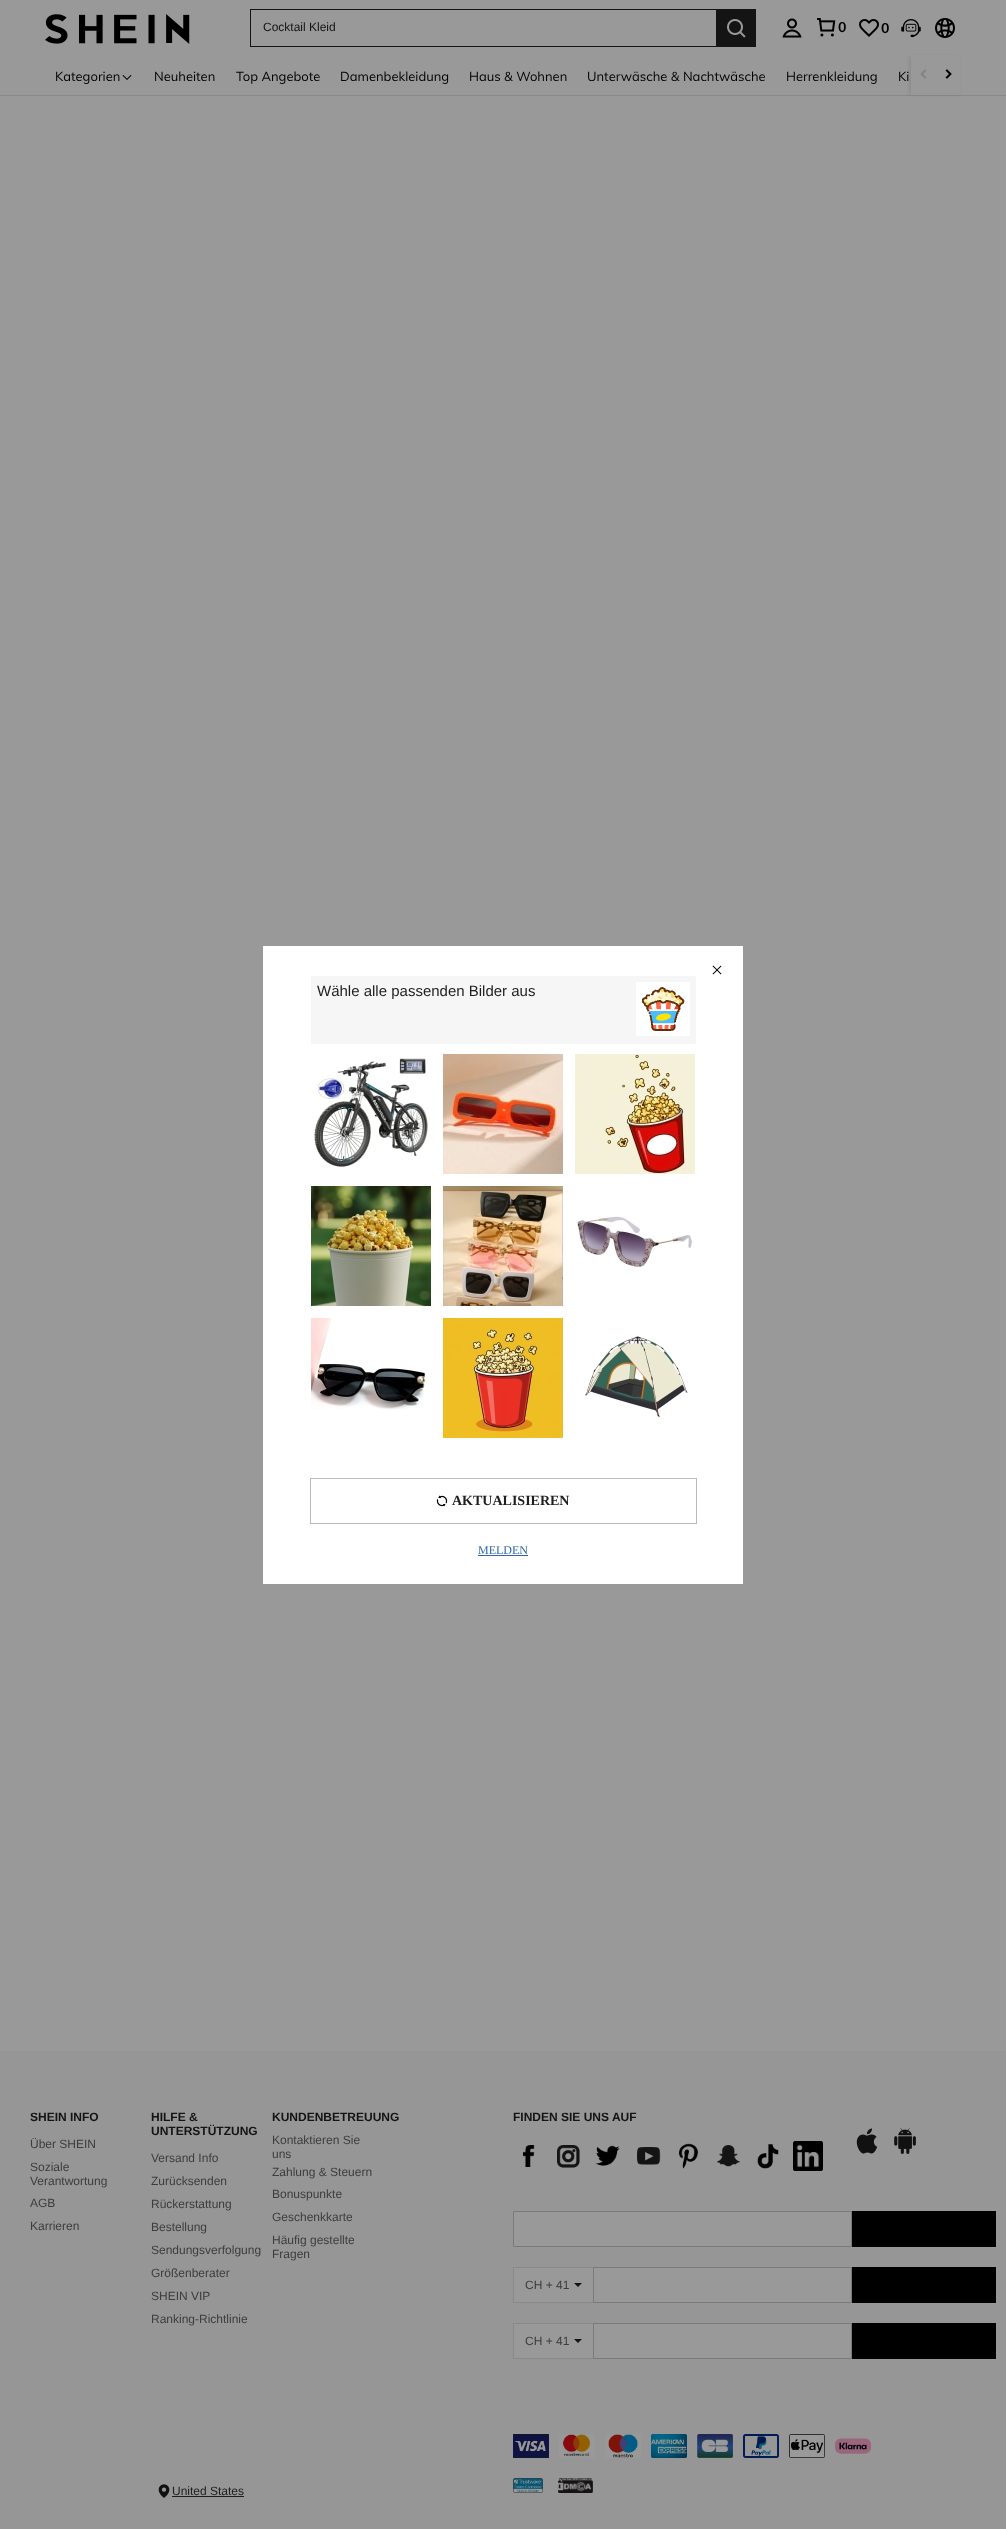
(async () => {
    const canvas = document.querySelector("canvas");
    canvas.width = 1006;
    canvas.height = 2529;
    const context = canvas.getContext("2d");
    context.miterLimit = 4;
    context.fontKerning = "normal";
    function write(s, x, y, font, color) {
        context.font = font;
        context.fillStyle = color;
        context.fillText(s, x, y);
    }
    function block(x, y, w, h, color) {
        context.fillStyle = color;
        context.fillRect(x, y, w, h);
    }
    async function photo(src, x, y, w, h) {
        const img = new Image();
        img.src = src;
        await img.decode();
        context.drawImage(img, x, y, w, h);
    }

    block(0, 0, 1006, 2529, "rgb(153, 153, 153)");
    block(0, 95, 1006, 1, "rgb(137, 137, 137)");
    context.fillStyle = "rgba(0, 0, 0, 0.08)";
    context.filter = "blur(1.5px)";
    context.beginPath();
    context.rect(909, 56, 50, 39);
    context.fill();
    context.filter = "none";
    block(909, 55, 50, 1, "rgb(153, 153, 153)");
    await photo("media/1.png", 45, 14, 145, 30);
    block(250, 9, 466, 1, "rgb(20, 20, 20)");
    block(250, 46, 466, 1, "rgb(20, 20, 20)");
    block(250, 9, 1, 38, "rgb(20, 20, 20)");
    write("Cocktail Kleid", 263, 31, "12px Liberation Sans", "rgb(20, 20, 20)");
    block(716, 9, 40, 38, "rgb(20, 20, 20)");
    await photo("media/2.png", 727, 19, 19, 19);
    await photo("media/3.png", 782, 18, 20, 20);
    await photo("media/4.png", 817, 18, 19, 19);
    write("0", 838, 32, "bold 14px Muli", "rgb(0, 0, 0)");
    await photo("media/5.png", 859, 19, 20, 18);
    write("0", 881, 33, "bold 14px Muli", "rgb(0, 0, 0)");
    await photo("media/6.png", 901, 19, 20, 19);
    await photo("media/7.png", 935, 18, 20, 20);
    write("Kategorien", 55, 81, "13px Muli", "rgb(0, 0, 0)");
    await photo("media/8.png", 122, 75, 10, 5);
    write("Neuheiten", 154, 81, "13px Muli", "rgb(0, 0, 0)");
    write("Top Angebote", 236, 81, "13px Muli", "rgb(0, 0, 0)");
    write("Damenbekleidung", 340, 81, "13px Muli", "rgb(0, 0, 0)");
    write("Haus & Wohnen", 469, 81, "13px Muli", "rgb(0, 0, 0)");
    write("Unterwäsche & Nachtwäsche", 587, 81, "13px Muli", "rgb(0, 0, 0)");
    write("Herrenkleidung", 786, 81, "13px Muli", "rgb(0, 0, 0)");
    write("Ki", 898, 81, "13px Muli", "rgb(0, 0, 0)");
    block(911, 56, 49, 39, "rgb(153, 153, 153)");
    await photo("media/9.png", 920, 69, 7, 10);
    await photo("media/10.png", 945, 69, 7, 10);
    block(0, 2051, 1006, 478, "rgb(150, 150, 150)");
    write("SHEIN INFO", 30, 2121, "bold 12px Liberation Sans", "rgb(20, 20, 20)");
    write("Über SHEIN", 30, 2148, "12px Liberation Sans", "rgb(61, 61, 61)");
    write("Soziale", 30, 2171, "12px Liberation Sans", "rgb(61, 61, 61)");
    write("Verantwortung", 30, 2185, "12px Liberation Sans", "rgb(61, 61, 61)");
    write("AGB", 30, 2207, "12px Liberation Sans", "rgb(61, 61, 61)");
    write("Karrieren", 30, 2230, "12px Liberation Sans", "rgb(61, 61, 61)");
    write("HILFE &", 151, 2121, "bold 12px Liberation Sans", "rgb(20, 20, 20)");
    write("UNTERSTÜTZUNG", 151, 2135, "bold 12px Liberation Sans", "rgb(20, 20, 20)");
    write("Versand Info", 151, 2162, "12px Liberation Sans", "rgb(61, 61, 61)");
    write("Zurücksenden", 151, 2185, "12px Liberation Sans", "rgb(61, 61, 61)");
    write("Rückerstattung", 151, 2208, "12px Liberation Sans", "rgb(61, 61, 61)");
    write("Bestellung", 151, 2231, "12px Liberation Sans", "rgb(61, 61, 61)");
    write("Sendungsverfolgung", 151, 2254, "12px Liberation Sans", "rgb(61, 61, 61)");
    write("Größenberater", 151, 2277, "12px Liberation Sans", "rgb(61, 61, 61)");
    write("SHEIN VIP", 151, 2300, "12px Liberation Sans", "rgb(61, 61, 61)");
    write("Ranking-Richtlinie", 151, 2323, "12px Liberation Sans", "rgb(61, 61, 61)");
    write("KUNDENBETREUUNG", 272, 2121, "bold 12px Liberation Sans", "rgb(20, 20, 20)");
    write("Kontaktieren Sie", 272, 2144, "12px Liberation Sans", "rgb(61, 61, 61)");
    write("uns", 272, 2158, "12px Liberation Sans", "rgb(61, 61, 61)");
    write("Zahlung & Steuern", 272, 2176, "12px Liberation Sans", "rgb(61, 61, 61)");
    write("Bonuspunkte", 272, 2198, "12px Liberation Sans", "rgb(61, 61, 61)");
    write("Geschenkkarte", 272, 2221, "12px Liberation Sans", "rgb(61, 61, 61)");
    write("Häufig gestellte", 272, 2244, "12px Liberation Sans", "rgb(61, 61, 61)");
    write("Fragen", 272, 2258, "12px Liberation Sans", "rgb(61, 61, 61)");
    write("FINDEN SIE UNS AUF", 513, 2121, "bold 12px Liberation Sans", "rgb(20, 20, 20)");
    await photo("media/11.png", 523, 2145, 12, 22);
    await photo("media/12.png", 557, 2145, 23, 23);
    await photo("media/13.png", 595, 2145, 25, 21);
    await photo("media/14.png", 637, 2147, 24, 18);
    await photo("media/15.png", 679, 2143, 20, 26);
    await photo("media/16.png", 717, 2145, 23, 22);
    await photo("media/17.png", 757, 2144, 22, 25);
    await photo("media/18.png", 793, 2141, 30, 30);
    await photo("media/19.png", 856, 2128, 22, 26);
    await photo("media/20.png", 894, 2128, 22, 26);
    context.fillStyle = "rgb(153, 153, 153)";
    context.beginPath();
    context.rect(513.5, 2211.5, 338, 35);
    context.fill();
    context.strokeStyle = "rgb(122, 122, 122)";
    context.stroke();
    block(852, 2211, 144, 36, "rgb(0, 0, 0)");
    block(514, 2268, 79, 34, "rgb(153, 153, 153)");
    block(513, 2267, 80, 1, "rgb(137, 137, 137)");
    block(513, 2302, 80, 1, "rgb(137, 137, 137)");
    block(513, 2267, 1, 36, "rgb(137, 137, 137)");
    write("CH + 41", 525, 2289, "12px Liberation Sans", "rgb(61, 61, 61)");
    context.fillStyle = "rgb(20, 20, 20)";
    context.beginPath();
    context.moveTo(574, 2283);
    context.lineTo(582, 2283);
    context.lineTo(578, 2287);
    context.closePath();
    context.fill();
    context.fillStyle = "rgb(153, 153, 153)";
    context.beginPath();
    context.rect(593.5, 2267.5, 258, 35);
    context.fill();
    context.stroke();
    block(852, 2267, 144, 36, "rgb(0, 0, 0)");
    block(514, 2324, 79, 34, "rgb(153, 153, 153)");
    block(513, 2323, 80, 1, "rgb(137, 137, 137)");
    block(513, 2358, 80, 1, "rgb(137, 137, 137)");
    block(513, 2323, 1, 36, "rgb(137, 137, 137)");
    write("CH + 41", 525, 2345, "12px Liberation Sans", "rgb(61, 61, 61)");
    context.fillStyle = "rgb(20, 20, 20)";
    context.beginPath();
    context.moveTo(574, 2339);
    context.lineTo(582, 2339);
    context.lineTo(578, 2343);
    context.closePath();
    context.fill();
    context.fillStyle = "rgb(153, 153, 153)";
    context.beginPath();
    context.rect(593.5, 2323.5, 258, 35);
    context.fill();
    context.stroke();
    block(852, 2323, 144, 36, "rgb(0, 0, 0)");
    await photo("media/21.png", 513, 2434, 36, 24);
    await photo("media/22.png", 559, 2434, 36, 24);
    await photo("media/23.png", 605, 2434, 36, 24);
    await photo("media/24.png", 651, 2434, 36, 24);
    await photo("media/25.png", 697, 2434, 36, 24);
    await photo("media/26.png", 743, 2434, 36, 24);
    await photo("media/27.png", 789, 2434, 36, 24);
    await photo("media/28.png", 835, 2438, 36, 16);
    await photo("media/29.png", 158, 2484, 12, 14);
    write("United States", 172, 2495, "12px Liberation Sans", "rgb(30, 30, 30)");
    block(172, 2496, 72, 1, "rgb(30, 30, 30)");
    await photo("media/30.png", 513, 2478, 30, 15);
    await photo("media/31.png", 558, 2478, 35, 15);
    context.fillStyle = "rgba(0, 0, 0, 0.3)";
    context.filter = "blur(0.5px)";
    context.beginPath();
    context.rect(263, 946, 480, 638);
    context.fill();
    context.filter = "none";
    block(263, 946, 480, 638, "rgb(255, 255, 255)");
    await photo("media/32.png", 712, 965, 10, 10);
    block(311, 976, 385, 68, "rgb(246, 246, 246)");
    write("Wähle alle passenden Bilder aus", 317, 996, "15px Liberation Sans", "rgb(30, 30, 30)");
    block(636, 982, 54, 54, "rgb(255, 255, 255)");
    await photo("media/33.png", 642, 987, 43, 44);
    await photo("media/34.png", 311, 1057, 119, 110);
    await photo("media/35.png", 443, 1054, 120, 120);
    await photo("media/36.png", 575, 1054, 120, 120);
    await photo("media/37.png", 311, 1186, 120, 120);
    await photo("media/38.png", 443, 1186, 120, 120);
    await photo("media/39.png", 577, 1216, 115, 51);
    await photo("media/40.png", 311, 1318, 116, 92);
    await photo("media/41.png", 443, 1318, 120, 120);
    await photo("media/42.png", 585, 1336, 103, 81);
    context.strokeStyle = "rgb(187, 187, 187)";
    context.strokeRect(310.5, 1478.5, 386, 45);
    await photo("media/43.png", 436, 1495, 12, 12);
    write("AKTUALISIEREN", 452, 1505, "bold 14px Liberation Serif", "rgb(30, 30, 30)");
    write("MELDEN", 478, 1554, "12px Liberation Serif", "rgb(45, 104, 168)");
    block(478, 1555, 50, 1, "rgb(45, 104, 168)");
})();
